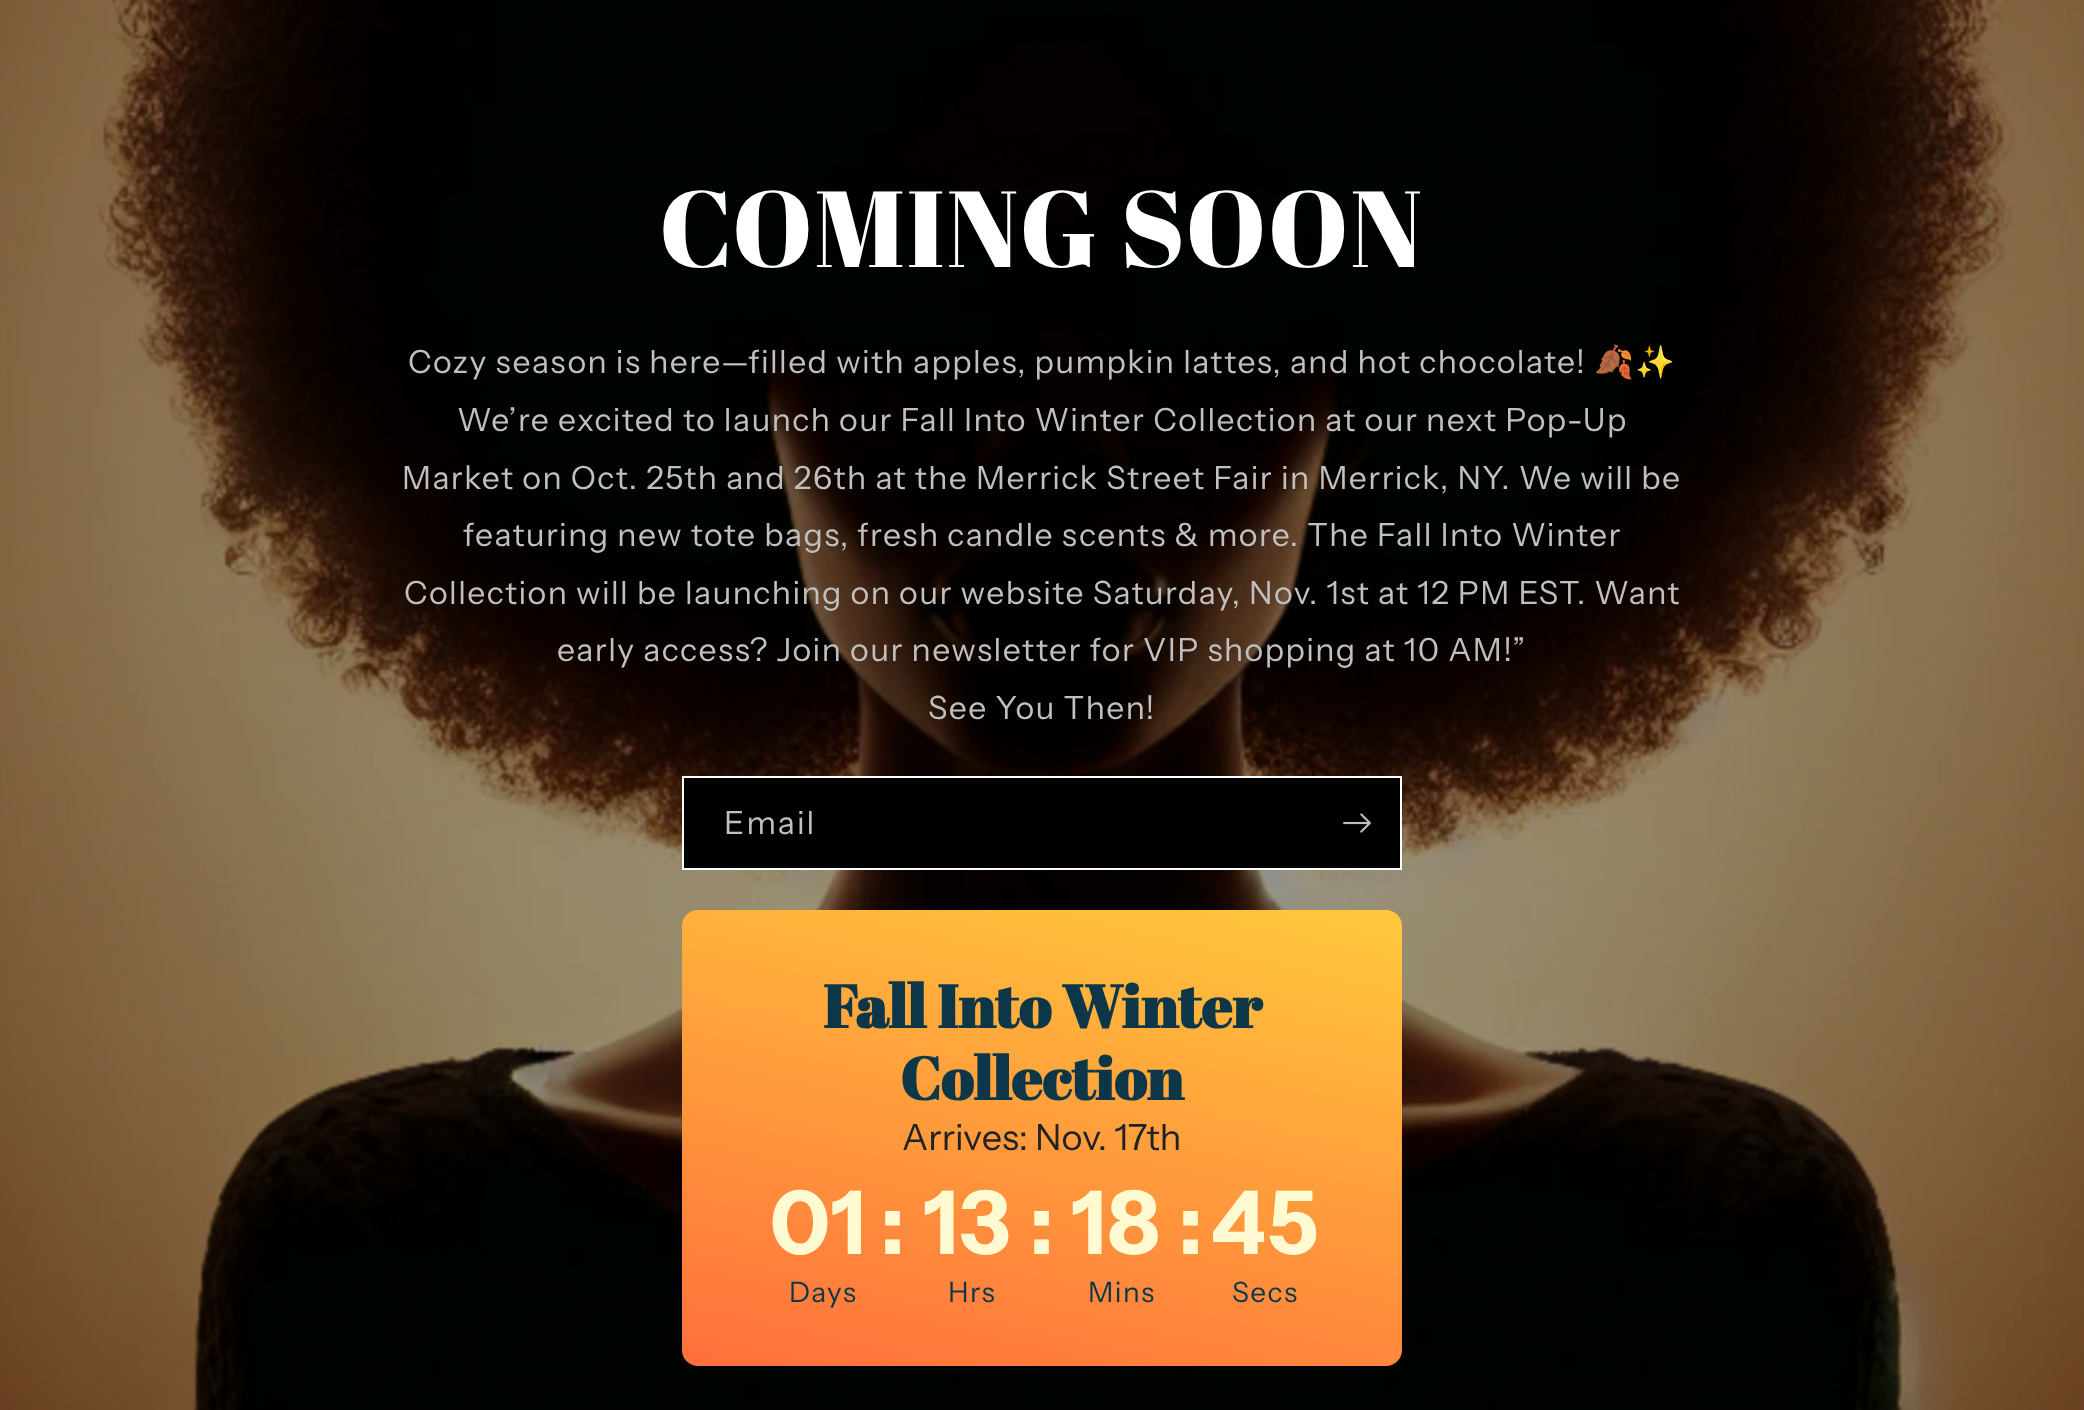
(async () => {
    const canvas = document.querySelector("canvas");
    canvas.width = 2084;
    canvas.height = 1410;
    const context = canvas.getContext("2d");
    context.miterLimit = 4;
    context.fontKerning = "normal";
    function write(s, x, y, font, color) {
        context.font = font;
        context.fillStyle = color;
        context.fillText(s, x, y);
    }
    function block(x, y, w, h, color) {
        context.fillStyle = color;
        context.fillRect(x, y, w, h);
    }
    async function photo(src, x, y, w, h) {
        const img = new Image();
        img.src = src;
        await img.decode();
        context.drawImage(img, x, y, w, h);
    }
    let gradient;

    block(0, 0, 2084, 1410, "rgb(255, 255, 255)");
    await photo("media/1.png", 0, 0, 2084, 1410);
    context.letterSpacing = "1.6px";
    write("COMING SOON", 659, 267, "108px Abril Fatface", "rgb(255, 255, 255)");
    context.letterSpacing = "1.4px";
    write("Cozy season is here—filled with apples, pumpkin lattes, and hot chocolate!", 408, 373, "32px Instrument Sans", "rgb(191, 192, 191)");
    write("🍂✨", 1594, 373, "32px Noto Color Emoji", "rgb(191, 192, 191)");
    write("We’re excited to launch our Fall Into Winter Collection at our next Pop-Up", 457, 431, "32px Instrument Sans", "rgb(191, 192, 191)");
    write("Market on Oct. 25th and 26th at the Merrick Street Fair in Merrick, NY. We will be", 402, 489, "32px Instrument Sans", "rgb(191, 192, 191)");
    write("featuring new tote bags, fresh candle scents & more. The Fall Into Winter", 463, 546, "32px Instrument Sans", "rgb(191, 192, 191)");
    write("Collection will be launching on our website Saturday, Nov. 1st at 12 PM EST. Want", 404, 604, "32px Instrument Sans", "rgb(191, 192, 191)");
    write("early access? Join our newsletter for VIP shopping at 10 AM!”", 557, 661, "32px Instrument Sans", "rgb(191, 192, 191)");
    write("See You Then!", 928, 719, "32px Instrument Sans", "rgb(191, 192, 191)");
    block(684, 778, 716, 90, "rgb(0, 0, 0)");
    context.strokeStyle = "rgb(255, 255, 255)";
    context.lineWidth = 2;
    context.strokeRect(683, 777, 718, 92);
    context.letterSpacing = "2px";
    write("Email", 724, 834, "32px Instrument Sans", "rgb(191, 192, 191)");
    await photo("media/2.png", 1343, 813, 28, 20);
    gradient = context.createLinearGradient(974, 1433, 1110, 843);
    gradient.addColorStop(0, "rgb(255, 111, 60)");
    gradient.addColorStop(1, "rgb(255, 201, 60)");
    context.fillStyle = gradient;
    context.beginPath();
    context.roundRect(682, 910, 720, 456, 16);
    context.fill();
    context.letterSpacing = "0px";
    write("Fall Into Winter", 823, 1028, "bold 60px Abril Fatface", "rgb(13, 54, 73)");
    write("Collection", 900, 1100, "bold 60px Abril Fatface", "rgb(13, 54, 73)");
    write("Arrives: Nov. 17th", 902, 1150, "36px Instrument Sans", "rgb(32, 34, 35)");
    context.letterSpacing = "1.4px";
    write("01", 770, 1254, "bold 88px Instrument Sans", "rgb(255, 250, 209)");
    write(":", 880, 1254, "bold 88px Instrument Sans", "rgb(255, 250, 209)");
    write("13", 924, 1254, "bold 88px Instrument Sans", "rgb(255, 250, 209)");
    write(":", 1029, 1254, "bold 88px Instrument Sans", "rgb(255, 250, 209)");
    write("18", 1072, 1254, "bold 88px Instrument Sans", "rgb(255, 250, 209)");
    write(":", 1178, 1254, "bold 88px Instrument Sans", "rgb(255, 250, 209)");
    write("45", 1211, 1254, "bold 88px Instrument Sans", "rgb(255, 250, 209)");
    write("Days", 789, 1302, "28px Instrument Sans", "rgb(13, 54, 73)");
    write("Hrs", 948, 1302, "28px Instrument Sans", "rgb(13, 54, 73)");
    write("Mins", 1088, 1302, "28px Instrument Sans", "rgb(13, 54, 73)");
    write("Secs", 1232, 1302, "28px Instrument Sans", "rgb(13, 54, 73)");
})();
